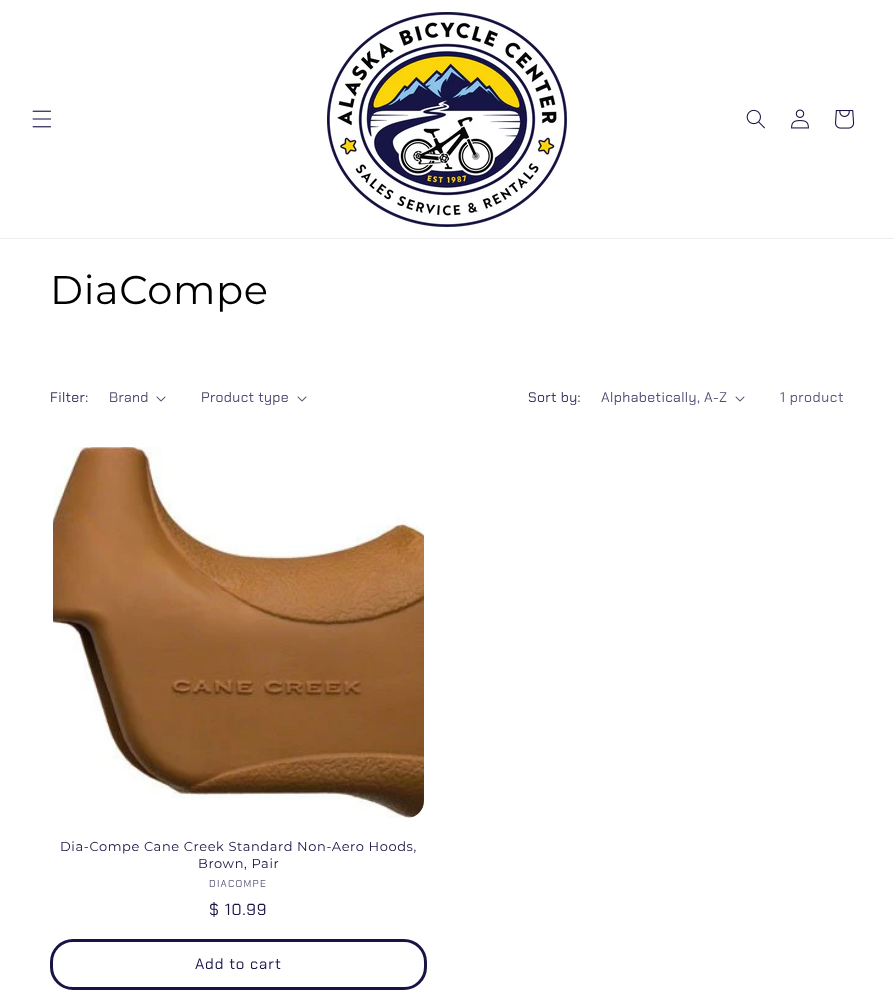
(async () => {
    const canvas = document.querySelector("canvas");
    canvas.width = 894;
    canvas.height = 992;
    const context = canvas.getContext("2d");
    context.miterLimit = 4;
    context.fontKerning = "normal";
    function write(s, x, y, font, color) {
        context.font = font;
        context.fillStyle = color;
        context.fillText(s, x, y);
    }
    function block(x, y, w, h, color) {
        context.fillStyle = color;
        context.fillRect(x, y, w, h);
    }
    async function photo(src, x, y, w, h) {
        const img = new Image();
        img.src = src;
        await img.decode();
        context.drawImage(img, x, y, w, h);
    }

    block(0, 0, 894, 992, "rgb(255, 255, 255)");
    block(0, 238, 894, 1, "rgb(237, 236, 240)");
    await photo("media/1.png", 32, 110, 20, 18);
    await photo("media/2.png", 327, 12, 240, 215);
    await photo("media/3.png", 746, 109, 19, 20);
    await photo("media/4.png", 791, 109, 18, 20);
    await photo("media/5.png", 835, 110, 20, 19);
    context.letterSpacing = "0.6px";
    write("DiaCompe", 50, 304, "40px Montserrat", "rgb(0, 0, 0)");
    context.letterSpacing = "0.4px";
    write("Filter:", 50, 402, "14px Chakra Petch", "rgb(59, 55, 97)");
    write("Brand", 109, 402, "14px Chakra Petch", "rgb(82, 79, 116)");
    await photo("media/6.png", 156, 396, 10, 6);
    write("Product type", 201, 402, "14px Chakra Petch", "rgb(82, 79, 116)");
    await photo("media/6.png", 297, 396, 10, 6);
    write("Sort by:", 528, 402, "14px Chakra Petch", "rgb(59, 55, 97)");
    write("Alphabetically, A-Z", 601, 402, "14px Chakra Petch", "rgb(82, 79, 116)");
    await photo("media/6.png", 735, 396, 10, 6);
    context.letterSpacing = "0.6px";
    write("1 product", 780, 402, "14px Chakra Petch", "rgb(93, 91, 125)");
    await photo("media/7.png", 53, 447, 371, 371);
    write("Dia-Compe Cane Creek Standard Non-Aero Hoods,", 60, 851, "13px Montserrat", "rgb(24, 20, 69)");
    write("Brown, Pair", 198, 868, "13px Montserrat", "rgb(24, 20, 69)");
    context.letterSpacing = "1.25px";
    write("DIACOMPE", 209, 887, "10px Chakra Petch", "rgb(93, 91, 125)");
    context.letterSpacing = "1px";
    write("$ 10.99", 209, 915, "16px Chakra Petch", "rgb(24, 20, 69)");
    context.beginPath();
    context.roundRect(51.5, 940.5, 374, 48, 21.5);
    context.strokeStyle = "rgb(24, 20, 69)";
    context.lineWidth = 3;
    context.stroke();
    write("Add to cart", 195, 969, "15px Chakra Petch", "rgb(24, 20, 69)");
})();
